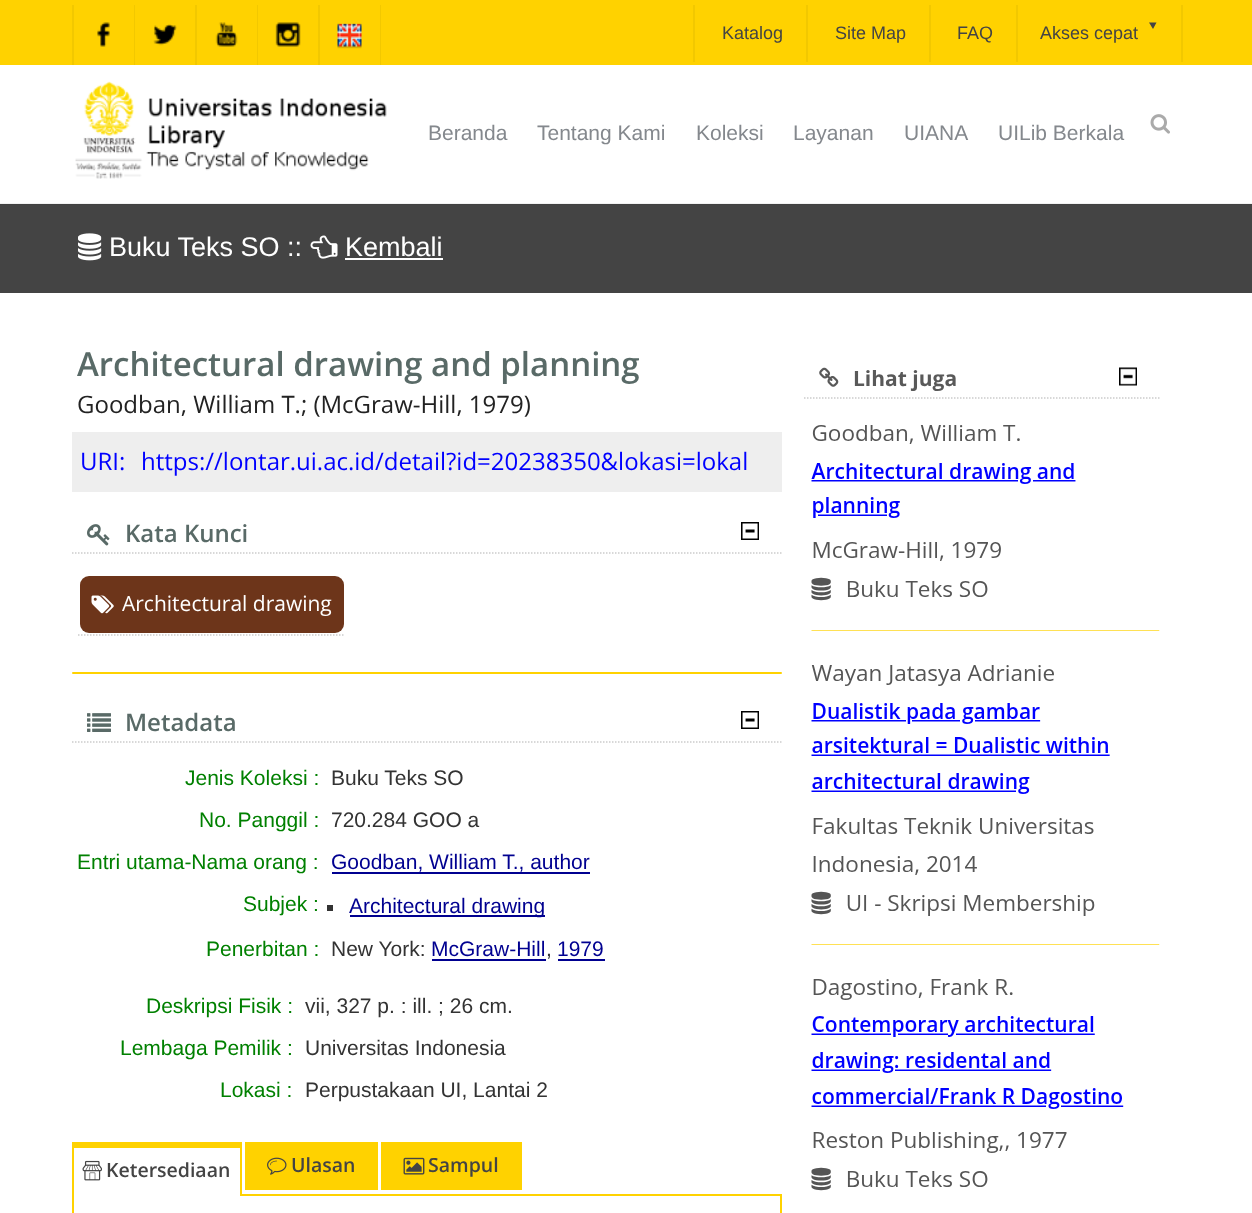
(async () => {
    const canvas = document.querySelector("canvas");
    canvas.width = 1252;
    canvas.height = 1213;
    const context = canvas.getContext("2d");
    context.miterLimit = 4;
    context.fontKerning = "normal";
    function write(s, x, y, font, color) {
        context.font = font;
        context.fillStyle = color;
        context.fillText(s, x, y);
    }
    function block(x, y, w, h, color) {
        context.fillStyle = color;
        context.fillRect(x, y, w, h);
    }
    function card(x, y, w, h, r, color) {
        context.fillStyle = color;
        context.beginPath();
        context.roundRect(x, y, w, h, r);
        context.fill();
    }
    async function photo(src, x, y, w, h) {
        const img = new Image();
        img.src = src;
        await img.decode();
        context.drawImage(img, x, y, w, h);
    }

    block(0, 0, 1252, 1213, "rgb(255, 255, 255)");
    block(0, 203, 1252, 1, "rgb(242, 242, 242)");
    block(0, 0, 1252, 65, "rgb(255, 210, 0)");
    block(72, 5, 2, 60, "rgb(242, 200, 0)");
    block(134, 5, 1, 60, "rgb(242, 200, 0)");
    await photo("media/1.png", 97, 22, 13, 25);
    block(195, 5, 2, 60, "rgb(242, 200, 0)");
    await photo("media/2.png", 153, 24, 24, 22);
    block(257, 5, 1, 60, "rgb(242, 200, 0)");
    await photo("media/3.png", 215, 22, 23, 25);
    block(318, 5, 2, 60, "rgb(242, 200, 0)");
    await photo("media/4.png", 275, 22, 26, 25);
    block(380, 5, 1, 60, "rgb(242, 200, 0)");
    await photo("media/5.png", 337, 23, 25, 26);
    block(693, 5, 2, 57, "rgb(242, 200, 0)");
    write("Katalog", 722, 39, "18px Liberation Sans", "rgb(68, 68, 68)");
    block(806, 5, 2, 57, "rgb(242, 200, 0)");
    write("Site Map", 835, 39, "18px Liberation Sans", "rgb(68, 68, 68)");
    block(929, 5, 2, 57, "rgb(242, 200, 0)");
    write("FAQ", 957, 39, "18px Liberation Sans", "rgb(68, 68, 68)");
    block(1181, 5, 2, 57, "rgb(242, 200, 0)");
    block(1016, 5, 2, 57, "rgb(242, 200, 0)");
    write("Akses cepat", 1040, 39, "18px Liberation Sans", "rgb(68, 68, 68)");
    context.beginPath();
    context.moveTo(1156.5, 22.5);
    context.lineTo(1153, 29);
    context.lineTo(1149, 22.5);
    context.closePath();
    context.fill();
    await photo("media/6.png", 75, 81, 312, 98);
    write("Beranda", 428, 140, "21px Liberation Sans", "rgb(132, 136, 141)");
    write("Tentang Kami", 537, 140, "21px Liberation Sans", "rgb(132, 136, 141)");
    write("Koleksi", 696, 140, "21px Liberation Sans", "rgb(132, 136, 141)");
    write("Layanan", 793, 140, "21px Liberation Sans", "rgb(132, 136, 141)");
    write("UIANA", 904, 140, "21px Liberation Sans", "rgb(132, 136, 141)");
    write("UILib Berkala", 998, 140, "21px Liberation Sans", "rgb(132, 136, 141)");
    await photo("media/7.png", 1150, 114, 20, 20);
    block(0, 205, 1252, 88, "rgb(68, 68, 68)");
    block(0, 204, 1252, 1, "rgb(65, 65, 65)");
    await photo("media/8.png", 78, 233, 24, 28);
    write("Buku Teks SO ::", 109, 256, "27px Liberation Sans", "rgb(255, 255, 255)");
    await photo("media/9.png", 310, 235, 28, 24);
    write("Kembali", 345, 256, "27px Liberation Sans", "rgb(255, 255, 255)");
    block(345, 258, 98, 2, "rgb(255, 255, 255)");
    write("Architectural drawing and planning", 77, 376, "600 33px Open Sans", "rgb(89, 106, 103)");
    write("Goodban, William T.; (McGraw-Hill, 1979)", 77, 413, "24px Open Sans", "rgb(34, 34, 34)");
    block(72, 432, 710, 60, "rgb(238, 238, 238)");
    write("URI:", 80, 470, "24px Open Sans", "rgb(0, 0, 255)");
    write("https://lontar.ui.ac.id/detail?id=20238350&lokasi=lokal", 141, 470, "24px Open Sans", "rgb(0, 0, 255)");
    context.beginPath();
    context.moveTo(72, 553);
    context.lineTo(781.5, 553);
    context.strokeStyle = "rgb(204, 204, 204)";
    context.lineWidth = 1.5;
    context.setLineDash([1.5, 1.5]);
    context.stroke();
    await photo("media/10.png", 87, 524, 23, 22);
    write("Kata Kunci", 125, 542, "600 24px Open Sans", "rgb(89, 106, 103)");
    await photo("media/11.png", 741, 522, 18, 18);
    context.beginPath();
    context.moveTo(78, 635);
    context.lineTo(345, 635);
    context.stroke();
    card(80, 576, 264, 57, 9, "rgb(109, 53, 26)");
    await photo("media/12.png", 91, 595, 23, 19);
    write("Architectural drawing", 122, 611, "21px Open Sans", "rgb(255, 255, 255)");
    card(72, 672, 710, 2, 1, "rgb(255, 210, 0)");
    context.beginPath();
    context.moveTo(72, 742);
    context.lineTo(781.5, 742);
    context.stroke();
    await photo("media/13.png", 87, 713, 24, 19);
    write("Metadata", 125, 731, "600 24px Open Sans", "rgb(89, 106, 103)");
    await photo("media/11.png", 741, 711, 18, 18);
    write("Jenis Koleksi :", 185, 785, "21px Liberation Sans", "rgb(0, 128, 0)");
    write("Buku Teks SO", 331, 785, "21px Liberation Sans", "rgb(51, 51, 51)");
    write("No. Panggil :", 199, 827, "21px Liberation Sans", "rgb(0, 128, 0)");
    write("720.284 GOO a", 331, 827, "21px Liberation Sans", "rgb(51, 51, 51)");
    write("Entri utama-Nama orang :", 77, 869, "21px Liberation Sans", "rgb(0, 128, 0)");
    write("Goodban, William T., author", 331, 869, "21px Liberation Sans", "rgb(0, 0, 144)");
    block(332, 872, 258, 2, "rgb(0, 0, 144)");
    write("Subjek :", 243, 911, "21px Liberation Sans", "rgb(0, 128, 0)");
    block(327, 905, 6, 6, "rgb(51, 51, 51)");
    block(350, 915, 195, 2, "rgb(0, 0, 144)");
    write("Architectural drawing", 349, 913, "21px Liberation Sans", "rgb(0, 0, 144)");
    write("Penerbitan :", 206, 956, "21px Liberation Sans", "rgb(0, 128, 0)");
    write("New York:", 331, 956, "21px Liberation Sans", "rgb(51, 51, 51)");
    write("McGraw-Hill", 431, 956, "21px Liberation Sans", "rgb(0, 0, 144)");
    block(432, 959, 114, 2, "rgb(0, 0, 144)");
    write(",", 546, 956, "21px Liberation Sans", "rgb(51, 51, 51)");
    write("1979", 557, 956, "21px Liberation Sans", "rgb(0, 0, 144)");
    block(558, 959, 47, 2, "rgb(0, 0, 144)");
    write("Deskripsi Fisik :", 146, 1013, "21px Liberation Sans", "rgb(0, 128, 0)");
    write("vii, 327 p. : ill. ; 26 cm.", 305, 1013, "21px Liberation Sans", "rgb(51, 51, 51)");
    write("Lembaga Pemilik :", 120, 1055, "21px Liberation Sans", "rgb(0, 128, 0)");
    write("Universitas Indonesia", 305, 1055, "21px Liberation Sans", "rgb(51, 51, 51)");
    write("Lokasi :", 220, 1097, "21px Liberation Sans", "rgb(0, 128, 0)");
    write("Perpustakaan UI, Lantai 2", 305, 1097, "21px Liberation Sans", "rgb(51, 51, 51)");
    context.strokeStyle = "rgb(255, 210, 0)";
    context.lineWidth = 2;
    context.setLineDash([]);
    context.strokeRect(73, 1195, 708, 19);
    block(74, 1194, 166, 2, "rgb(255, 255, 255)");
    block(72, 1142, 170, 6, "rgb(255, 210, 0)");
    block(240, 1142, 2, 54, "rgb(255, 210, 0)");
    block(72, 1142, 2, 54, "rgb(255, 210, 0)");
    await photo("media/14.png", 82, 1160, 20, 21);
    write("Ketersediaan", 106, 1177, "600 19.5px Open Sans", "rgb(68, 68, 68)");
    block(245, 1142, 133, 48, "rgb(255, 210, 0)");
    await photo("media/15.png", 267, 1157, 20, 18);
    write("Ulasan", 291, 1172, "600 19.5px Open Sans", "rgb(68, 68, 68)");
    block(381, 1142, 141, 48, "rgb(255, 210, 0)");
    await photo("media/16.png", 403, 1157, 22, 18);
    write("Sampul", 428, 1172, "600 19.5px Open Sans", "rgb(68, 68, 68)");
    context.beginPath();
    context.moveTo(804, 398);
    context.lineTo(1159.5, 398);
    context.strokeStyle = "rgb(204, 204, 204)";
    context.lineWidth = 1.5;
    context.setLineDash([1.5, 1.5]);
    context.stroke();
    await photo("media/17.png", 819, 367, 20, 20);
    write("Lihat juga", 853, 386, "bold 21px Open Sans", "rgb(89, 89, 89)");
    await photo("media/18.png", 1119, 367, 18, 19);
    await photo("media/19.png", 811, 425, 349, 766);
})();
